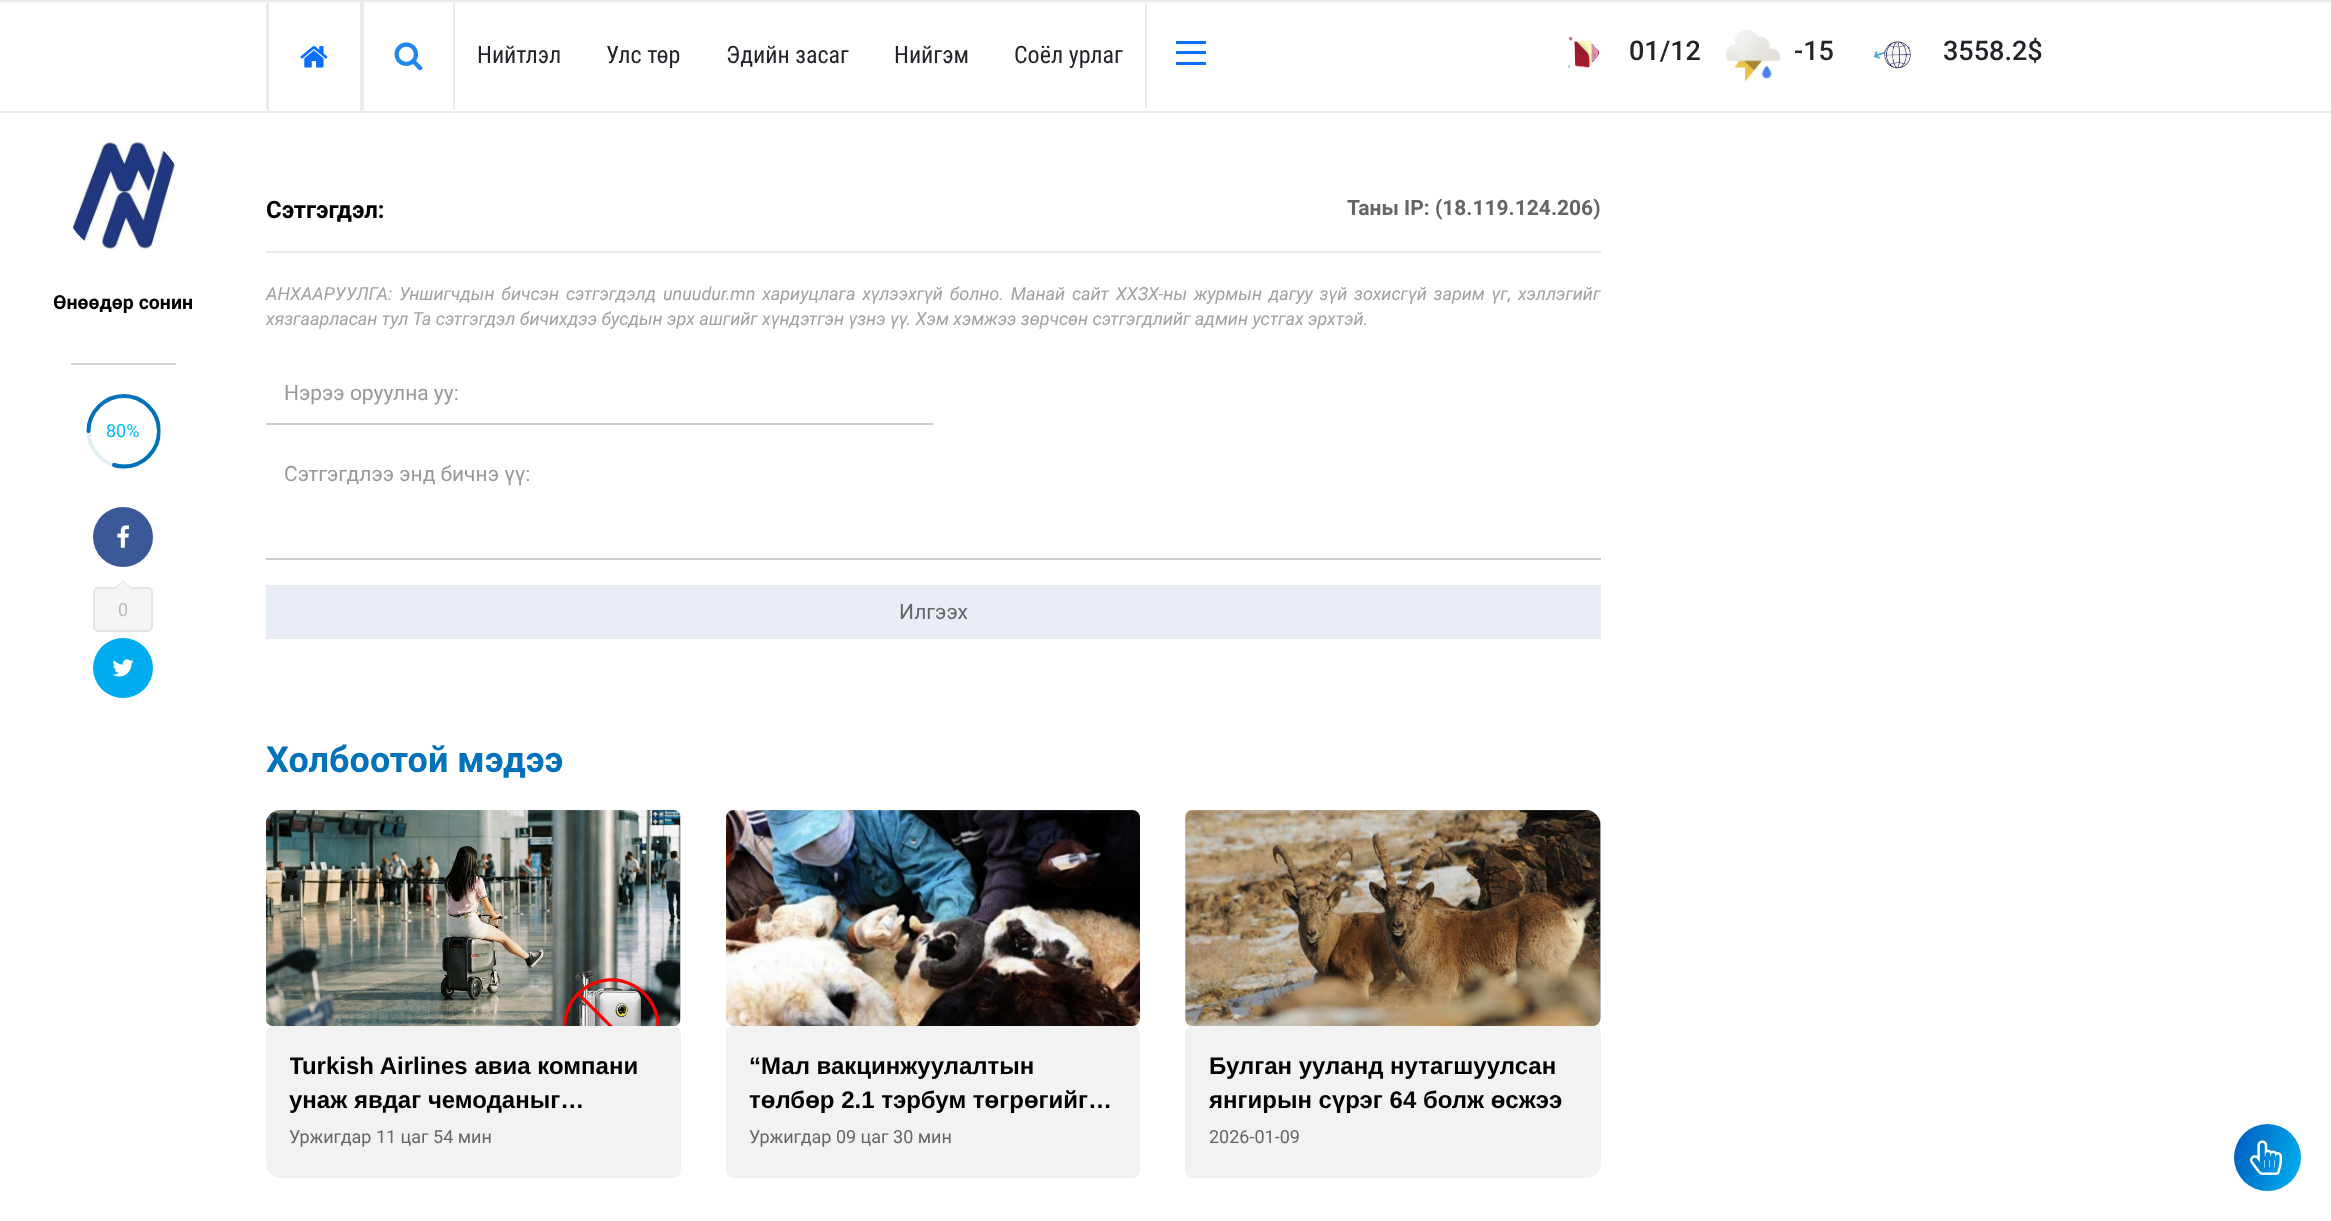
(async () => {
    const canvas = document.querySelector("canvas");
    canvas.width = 2331;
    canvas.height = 1221;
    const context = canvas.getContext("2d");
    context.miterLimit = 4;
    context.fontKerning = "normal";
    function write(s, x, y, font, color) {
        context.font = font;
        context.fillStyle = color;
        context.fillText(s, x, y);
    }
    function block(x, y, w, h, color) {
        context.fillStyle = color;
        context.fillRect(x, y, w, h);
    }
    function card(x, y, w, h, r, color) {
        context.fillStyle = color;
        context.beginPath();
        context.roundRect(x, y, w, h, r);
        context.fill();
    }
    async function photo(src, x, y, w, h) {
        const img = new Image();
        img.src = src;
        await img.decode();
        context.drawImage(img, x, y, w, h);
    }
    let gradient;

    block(0, 0, 2331, 1221, "rgb(255, 255, 255)");
    block(0, 0, 2331, 2, "rgb(233, 236, 239)");
    block(0, 111, 2331, 2, "rgb(233, 236, 239)");
    block(266, 3, 1, 105, "rgb(233, 236, 239)");
    block(360, 3, 2, 108, "rgb(233, 236, 239)");
    block(267, 3, 2, 108, "rgb(233, 236, 239)");
    await photo("media/1.png", 300, 46, 28, 22);
    block(453, 2, 2, 108, "rgb(233, 236, 239)");
    block(362, 2, 2, 108, "rgb(233, 236, 239)");
    await photo("media/2.png", 394, 42, 29, 29);
    write("Нийтлэл", 477, 63, "24px Roboto Condensed", "rgb(33, 37, 41)");
    write("Улс төр", 606, 63, "24px Roboto Condensed", "rgb(33, 37, 41)");
    write("Эдийн засаг", 726, 63, "24px Roboto Condensed", "rgb(33, 37, 41)");
    write("Нийгэм", 894, 63, "24px Roboto Condensed", "rgb(33, 37, 41)");
    write("Соёл урлаг", 1014, 63, "24px Roboto Condensed", "rgb(33, 37, 41)");
    block(1145, 3, 2, 105, "rgb(233, 236, 239)");
    block(1176, 41, 30, 3, "rgb(13, 110, 253)");
    block(1176, 51, 30, 3, "rgb(13, 110, 253)");
    block(1176, 62, 30, 3, "rgb(13, 110, 253)");
    await photo("media/3.png", 1568, 36, 32, 32);
    write("01/12", 1629, 60, "500 27px Roboto", "rgb(33, 37, 41)");
    await photo("media/4.png", 1725, 30, 56, 52);
    write("-15", 1794, 60, "500 27px Roboto", "rgb(33, 37, 41)");
    await photo("media/5.png", 1874, 41, 37, 28);
    write("3558.2$", 1943, 60, "500 27px Roboto", "rgb(33, 37, 41)");
    await photo("media/6.png", 71, 142, 105, 111);
    write("Өнөөдөр сонин", 53, 309, "bold 19.5px Roboto", "rgb(0, 0, 0)");
    block(71, 363, 105, 2, "rgb(212, 212, 212)");
    context.save();
    context.beginPath();
    context.moveTo(85.5, 469);
    context.lineTo(85.5, 394);
    context.lineTo(160.5, 394);
    context.lineTo(160.5, 469);
    context.closePath();
    context.clip();
    context.beginPath();
    context.moveTo(88.5, 431);
    context.bezierCurveTo(88.5, 412, 104.5, 396, 124, 396);
    context.bezierCurveTo(143, 396, 159, 412, 159, 431);
    context.bezierCurveTo(159, 450.5, 143, 466.5, 124, 466.5);
    context.bezierCurveTo(104.5, 466.5, 88.5, 450.5, 88.5, 431);
    context.closePath();
    context.strokeStyle = "rgb(226, 239, 240)";
    context.lineWidth = 4;
    context.stroke();
    context.beginPath();
    context.moveTo(88.5, 431);
    context.bezierCurveTo(88.5, 412, 104.5, 396, 124, 396);
    context.bezierCurveTo(143, 396, 159, 412, 159, 431);
    context.bezierCurveTo(159, 450.5, 143, 466.5, 124, 466.5);
    context.bezierCurveTo(120.5, 466.5, 117, 466, 114, 465);
    context.strokeStyle = "rgb(0, 114, 187)";
    context.lineCap = "round";
    context.stroke();
    context.restore();
    write("80%", 106, 437, "18px Roboto", "rgb(0, 186, 255)");
    context.fillStyle = "rgb(59, 89, 152)";
    context.beginPath();
    context.arc(123, 537, 30, 0, Math.PI * 2);
    context.fill();
    await photo("media/7.png", 117, 525, 12, 23);
    context.fillStyle = "rgb(245, 245, 245)";
    context.beginPath();
    context.roundRect(94, 588, 58, 43, 4);
    context.fill();
    context.strokeStyle = "rgb(229, 229, 229)";
    context.lineWidth = 2;
    context.stroke();
    context.fillStyle = "rgb(229, 229, 229)";
    context.beginPath();
    context.moveTo(130.5, 587);
    context.lineTo(115.5, 587);
    context.lineTo(123, 580);
    context.closePath();
    context.fill();
    context.fillStyle = "rgb(245, 245, 245)";
    context.beginPath();
    context.moveTo(130.5, 589);
    context.lineTo(115.5, 589);
    context.lineTo(123, 581);
    context.closePath();
    context.fill();
    write("0", 118, 616, "18px Roboto", "rgb(187, 187, 187)");
    context.fillStyle = "rgb(0, 172, 238)";
    context.beginPath();
    context.arc(123, 668, 30, 0, Math.PI * 2);
    context.fill();
    await photo("media/8.png", 112, 659, 22, 18);
    block(266, 251, 1335, 2, "rgb(233, 233, 233)");
    write("Сэтгэгдэл:", 266, 218, "bold 24px Roboto", "rgb(0, 0, 0)");
    write("Таны IP: (18.119.124.206)", 1347, 215, "bold 21px Roboto", "rgb(102, 102, 102)");
    context.wordSpacing = "2.4px";
    write("АНХААРУУЛГА: Уншигчдын бичсэн сэтгэгдэлд unuudur.mn хариуцлага хүлээхгүй болно. Манай сайт ХХЗХ-ны журмын дагуу зүй зохисгүй зарим үг, хэллэгийг", 266, 300, "italic 18px Roboto", "rgb(162, 162, 162)");
    context.wordSpacing = "0px";
    write("хязгаарласан тул Та сэтгэгдэл бичихдээ бусдын эрх ашгийг хүндэтгэн үзнэ үү. Хэм хэмжээ зөрчсөн сэтгэгдлийг админ устгах эрхтэй.", 266, 325, "italic 18px Roboto", "rgb(162, 162, 162)");
    block(266, 423, 667, 2, "rgb(205, 205, 205)");
    write("Нэрээ оруулна уу:", 284, 400, "21px Roboto", "rgb(153, 153, 153)");
    block(266, 558, 1335, 2, "rgb(205, 205, 205)");
    write("Сэтгэгдлээ энд бичнэ үү:", 284, 481, "21px Roboto", "rgb(153, 153, 153)");
    block(266, 585, 1335, 54, "rgb(233, 238, 246)");
    write("Илгээх", 899, 619, "21px Roboto", "rgb(102, 102, 102)");
    write("Холбоотой мэдээ", 266, 772, "bold 36px Roboto", "rgb(0, 114, 187)");
    context.fillStyle = "rgb(204, 204, 204)";
    context.beginPath();
    context.roundRect(266, 810, 415, 216, [15, 8, 8, 8]);
    context.fill();
    await photo("media/9.png", 266, 810, 414, 216);
    context.fillStyle = "rgb(243, 242, 243)";
    context.beginPath();
    context.roundRect(266, 1026, 415, 152, [8, 8, 8, 15]);
    context.fill();
    context.save();
    context.beginPath();
    context.rect(290, 1050, 367, 68);
    context.clip();
    write("Turkish Airlines авиа компани", 289, 1074, "bold 24px Liberation Sans", "rgb(0, 0, 0)");
    context.restore();
    write("унаж явдаг чемоданыг…", 289, 1108, "bold 24px Liberation Sans", "rgb(0, 0, 0)");
    write("Уржигдар 11 цаг 54 мин", 289, 1143, "18px Roboto", "rgb(102, 102, 102)");
    await photo("media/10.png", 726, 810, 414, 216);
    card(726, 1026, 414, 152, 8, "rgb(243, 242, 243)");
    write("“Мал вакцинжуулалтын", 749, 1074, "bold 24px Liberation Sans", "rgb(0, 0, 0)");
    write("төлбөр 2.1 тэрбум төгрөгийг…", 749, 1108, "bold 24px Liberation Sans", "rgb(0, 0, 0)");
    write("Уржигдар 09 цаг 30 мин", 749, 1143, "18px Roboto", "rgb(102, 102, 102)");
    context.fillStyle = "rgb(204, 204, 204)";
    context.beginPath();
    context.roundRect(1185, 810, 416, 216, [8, 15, 8, 8]);
    context.fill();
    await photo("media/11.png", 1185, 810, 416, 216);
    context.fillStyle = "rgb(243, 242, 243)";
    context.beginPath();
    context.roundRect(1185, 1026, 416, 152, [8, 8, 15, 8]);
    context.fill();
    write("Булган ууланд нутагшуулсан", 1209, 1074, "bold 24px Liberation Sans", "rgb(0, 0, 0)");
    write("янгирын сүрэг 64 болж өсжээ", 1209, 1108, "bold 24px Liberation Sans", "rgb(0, 0, 0)");
    write("2026-01-09", 1209, 1143, "18px Roboto", "rgb(102, 102, 102)");
    gradient = context.createLinearGradient(2307, 1169, 2227, 1146);
    gradient.addColorStop(0, "rgb(0, 180, 241)");
    gradient.addColorStop(1, "rgb(0, 88, 189)");
    context.fillStyle = gradient;
    context.beginPath();
    context.arc(2267.5, 1157.5, 33.5, 0, Math.PI * 2);
    context.fill();
    await photo("media/12.png", 2250, 1140, 33, 35);
})();
